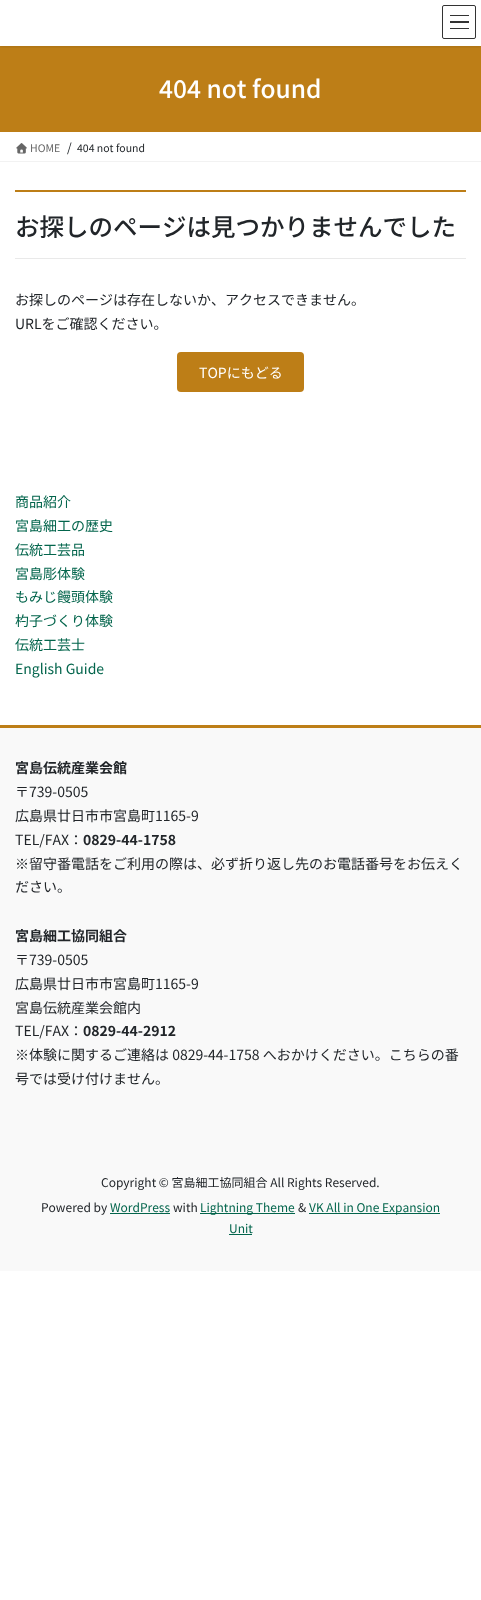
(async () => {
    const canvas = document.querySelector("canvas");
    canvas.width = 481;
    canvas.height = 1600;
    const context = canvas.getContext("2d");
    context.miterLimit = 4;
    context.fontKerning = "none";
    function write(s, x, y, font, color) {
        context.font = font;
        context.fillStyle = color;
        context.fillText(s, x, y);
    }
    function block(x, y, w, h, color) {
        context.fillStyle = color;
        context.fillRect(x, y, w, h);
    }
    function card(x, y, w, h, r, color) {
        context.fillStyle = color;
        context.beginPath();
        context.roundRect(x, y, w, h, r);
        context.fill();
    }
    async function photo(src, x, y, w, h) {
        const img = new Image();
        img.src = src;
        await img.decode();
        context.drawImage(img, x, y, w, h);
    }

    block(0, 0, 481, 1600, "rgb(255, 255, 255)");
    block(0, 46, 481, 86, "rgb(189, 126, 23)");
    context.save();
    context.beginPath();
    context.rect(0, 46, 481, 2);
    context.clip();
    context.fillStyle = "rgba(0, 0, 0, 0.1)";
    context.filter = "blur(1.5px)";
    context.beginPath();
    context.rect(0, 1, 481, 46);
    context.fill();
    context.filter = "none";
    context.restore();
    block(450, 15, 19, 1, "rgb(51, 51, 51)");
    block(450, 21, 19, 2, "rgb(51, 51, 51)");
    block(450, 28, 19, 1, "rgb(51, 51, 51)");
    context.beginPath();
    context.roundRect(442.5, 5.5, 33, 33, 1.5);
    context.strokeStyle = "rgb(51, 51, 51)";
    context.stroke();
    write("404 not found", 159, 98, "500 24.5px Noto Sans JP", "rgb(255, 255, 255)");
    block(0, 161, 481, 1, "rgb(242, 242, 242)");
    await photo("media/1.png", 16, 143, 11, 11);
    write("HOME", 30, 152, "10.5px Noto Sans JP", "rgb(102, 102, 102)");
    write("/", 67, 152, "12px Noto Sans JP", "rgb(33, 37, 41)");
    write("404 not found", 77, 152, "10.5px Noto Sans JP", "rgb(33, 37, 41)");
    block(15, 190, 451, 2, "rgb(189, 126, 23)");
    block(15, 258, 451, 1, "rgb(233, 233, 233)");
    write("お探しのページは見つかりませんでした", 15, 236, "500 24.5px Noto Sans JP", "rgb(33, 37, 41)");
    write("お探しのページは存在しないか、アクセスできません。", 15, 305, "14px Noto Sans JP", "rgb(33, 37, 41)");
    write("URLをご確認ください。", 15, 329, "14px Noto Sans JP", "rgb(33, 37, 41)");
    card(177, 352, 127, 40, 4, "rgb(189, 126, 23)");
    write("TOPにもどる", 199, 378, "14px Noto Sans JP", "rgb(255, 255, 255)");
    write("商品紹介", 15, 507, "14px Noto Sans JP", "rgb(3, 101, 76)");
    write("宮島細工の歴史", 15, 531, "14px Noto Sans JP", "rgb(3, 101, 76)");
    write("伝統工芸品", 15, 555, "14px Noto Sans JP", "rgb(3, 101, 76)");
    write("宮島彫体験", 15, 579, "14px Noto Sans JP", "rgb(3, 101, 76)");
    write("もみじ饅頭体験", 15, 602, "14px Noto Sans JP", "rgb(3, 101, 76)");
    write("杓子づくり体験", 15, 626, "14px Noto Sans JP", "rgb(3, 101, 76)");
    write("伝統工芸士", 15, 650, "14px Noto Sans JP", "rgb(3, 101, 76)");
    write("English Guide", 15, 674, "14px Noto Sans JP", "rgb(3, 101, 76)");
    block(0, 728, 481, 543, "rgb(249, 249, 249)");
    block(0, 725, 481, 3, "rgb(189, 126, 23)");
    write("宮島伝統産業会館", 15, 773, "bold 14px Noto Sans JP", "rgb(33, 37, 41)");
    write("〒739-0505", 15, 797, "14px Noto Sans JP", "rgb(33, 37, 41)");
    write("広島県廿日市市宮島町1165-9", 15, 821, "14px Noto Sans JP", "rgb(33, 37, 41)");
    write("TEL/FAX：", 15, 845, "14px Noto Sans JP", "rgb(33, 37, 41)");
    write("0829-44-1758", 83, 845, "bold 14px Noto Sans JP", "rgb(33, 37, 41)");
    write("※留守番電話をご利用の際は、必ず折り返し先のお電話番号をお伝えく", 15, 869, "14px Noto Sans JP", "rgb(33, 37, 41)");
    write("ださい。", 15, 892, "14px Noto Sans JP", "rgb(33, 37, 41)");
    write("宮島細工協同組合", 15, 941, "bold 14px Noto Sans JP", "rgb(33, 37, 41)");
    write("〒739-0505", 15, 965, "14px Noto Sans JP", "rgb(33, 37, 41)");
    write("広島県廿日市市宮島町1165-9", 15, 989, "14px Noto Sans JP", "rgb(33, 37, 41)");
    write("宮島伝統産業会館内", 15, 1013, "14px Noto Sans JP", "rgb(33, 37, 41)");
    write("TEL/FAX：", 15, 1036, "14px Noto Sans JP", "rgb(33, 37, 41)");
    write("0829-44-2912", 83, 1036, "bold 14px Noto Sans JP", "rgb(33, 37, 41)");
    write("※体験に関するご連絡は 0829-44-1758 へおかけください。こちらの番", 15, 1060, "14px Noto Sans JP", "rgb(33, 37, 41)");
    write("号では受け付けません。", 15, 1084, "14px Noto Sans JP", "rgb(33, 37, 41)");
    write("Copyright © 宮島細工協同組合 All Rights Reserved.", 101, 1187, "12px Noto Sans JP", "rgb(33, 37, 41)");
    write("Powered by", 41, 1212, "12px Noto Sans JP", "rgb(33, 37, 41)");
    write("WordPress", 110, 1212, "12px Noto Sans JP", "rgb(3, 101, 76)");
    block(110, 1213, 60, 1, "rgb(3, 101, 76)");
    write("with", 173, 1212, "12px Noto Sans JP", "rgb(33, 37, 41)");
    block(200, 1213, 95, 1, "rgb(3, 101, 76)");
    write("Lightning Theme", 200, 1212, "12px Noto Sans JP", "rgb(3, 101, 76)");
    write("&", 298, 1212, "12px Noto Sans JP", "rgb(33, 37, 41)");
    block(309, 1213, 131, 1, "rgb(3, 101, 76)");
    write("VK All in One Expansion", 309, 1212, "12px Noto Sans JP", "rgb(3, 101, 76)");
    write("Unit", 229, 1233, "12px Noto Sans JP", "rgb(3, 101, 76)");
    block(229, 1234, 23, 1, "rgb(3, 101, 76)");
})();
